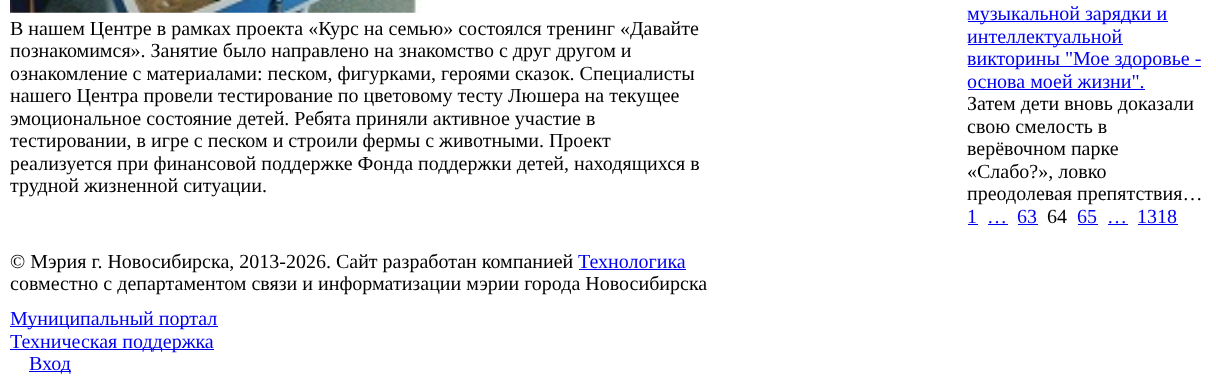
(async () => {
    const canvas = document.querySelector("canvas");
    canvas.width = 1216;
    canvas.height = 384;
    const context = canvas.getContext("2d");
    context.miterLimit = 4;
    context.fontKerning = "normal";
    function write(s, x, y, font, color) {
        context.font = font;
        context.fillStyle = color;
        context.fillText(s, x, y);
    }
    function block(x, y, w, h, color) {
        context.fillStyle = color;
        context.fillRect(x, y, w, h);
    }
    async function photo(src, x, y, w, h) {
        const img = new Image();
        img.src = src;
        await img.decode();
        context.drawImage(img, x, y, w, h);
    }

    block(0, 0, 1216, 384, "rgb(255, 255, 255)");
    await photo("media/1.png", 10, 0, 412, 13);
    write("В нашем Центре в рамках проекта «Курс на семью» состоялся тренинг «Давайте", 10, 35, "20px Liberation Serif", "rgb(0, 0, 0)");
    write("познакомимся». Занятие было направлено на знакомство с друг другом и", 10, 57, "20px Liberation Serif", "rgb(0, 0, 0)");
    write("ознакомление с материалами: песком, фигурками, героями сказок. Специалисты", 10, 80, "20px Liberation Serif", "rgb(0, 0, 0)");
    write("нашего Центра провели тестирование по цветовому тесту Люшера на текущее", 10, 102, "20px Liberation Serif", "rgb(0, 0, 0)");
    write("эмоциональное состояние детей. Ребята приняли активное участие в", 10, 125, "20px Liberation Serif", "rgb(0, 0, 0)");
    write("тестировании, в игре с песком и строили фермы с животными. Проект", 10, 147, "20px Liberation Serif", "rgb(0, 0, 0)");
    write("реализуется при финансовой поддержке Фонда поддержки детей, находящихся в", 10, 170, "20px Liberation Serif", "rgb(0, 0, 0)");
    write("трудной жизненной ситуации.", 10, 192, "20px Liberation Serif", "rgb(0, 0, 0)");
    block(968, 21, 200, 1, "rgb(0, 0, 238)");
    write("музыкальной зарядки и", 967, 20, "20px Liberation Serif", "rgb(0, 0, 238)");
    block(968, 44, 155, 1, "rgb(0, 0, 238)");
    write("интеллектуальной", 967, 43, "20px Liberation Serif", "rgb(0, 0, 238)");
    block(968, 66, 233, 1, "rgb(0, 0, 238)");
    write("викторины \"Мое здоровье -", 967, 65, "20px Liberation Serif", "rgb(0, 0, 238)");
    write("основа моей жизни\".", 967, 88, "20px Liberation Serif", "rgb(0, 0, 238)");
    block(968, 89, 177, 1, "rgb(0, 0, 238)");
    write("Затем дети вновь доказали", 967, 110, "20px Liberation Serif", "rgb(0, 0, 0)");
    write("свою смелость в", 967, 133, "20px Liberation Serif", "rgb(0, 0, 0)");
    write("верёвочном парке", 967, 155, "20px Liberation Serif", "rgb(0, 0, 0)");
    write("«Слабо?», ловко", 967, 178, "20px Liberation Serif", "rgb(0, 0, 0)");
    write("преодолевая препятствия…", 967, 200, "20px Liberation Serif", "rgb(0, 0, 0)");
    write("1", 967, 223, "20px Liberation Serif", "rgb(0, 0, 238)");
    block(968, 224, 10, 1, "rgb(0, 0, 238)");
    write("…", 987, 223, "20px Liberation Serif", "rgb(0, 0, 238)");
    block(988, 224, 20, 1, "rgb(0, 0, 238)");
    write("63", 1017, 223, "20px Liberation Serif", "rgb(0, 0, 238)");
    block(1018, 224, 20, 1, "rgb(0, 0, 238)");
    write("64", 1047, 223, "20px Liberation Serif", "rgb(0, 0, 0)");
    write("65", 1077, 223, "20px Liberation Serif", "rgb(0, 0, 238)");
    block(1078, 224, 20, 1, "rgb(0, 0, 238)");
    write("…", 1107, 223, "20px Liberation Serif", "rgb(0, 0, 238)");
    block(1108, 224, 20, 1, "rgb(0, 0, 238)");
    write("1318", 1137, 223, "20px Liberation Serif", "rgb(0, 0, 238)");
    block(1138, 224, 40, 1, "rgb(0, 0, 238)");
    write("© Мэрия г. Новосибирска, 2013-2026. Сайт разработан компанией", 10, 268, "20px Liberation Serif", "rgb(0, 0, 0)");
    write("Технологика", 578, 268, "20px Liberation Serif", "rgb(0, 0, 238)");
    block(579, 269, 107, 1, "rgb(0, 0, 238)");
    write("совместно с департаментом связи и информатизации мэрии города Новосибирска", 10, 290, "20px Liberation Serif", "rgb(0, 0, 0)");
    block(10, 326, 208, 1, "rgb(0, 0, 238)");
    write("Муниципальный портал", 10, 325, "20px Liberation Serif", "rgb(0, 0, 238)");
    block(10, 349, 204, 1, "rgb(0, 0, 238)");
    write("Техническая поддержка", 10, 348, "20px Liberation Serif", "rgb(0, 0, 238)");
    block(29, 371, 42, 1, "rgb(0, 0, 238)");
    write("Вход", 29, 370, "20px Liberation Serif", "rgb(0, 0, 238)");
})();
